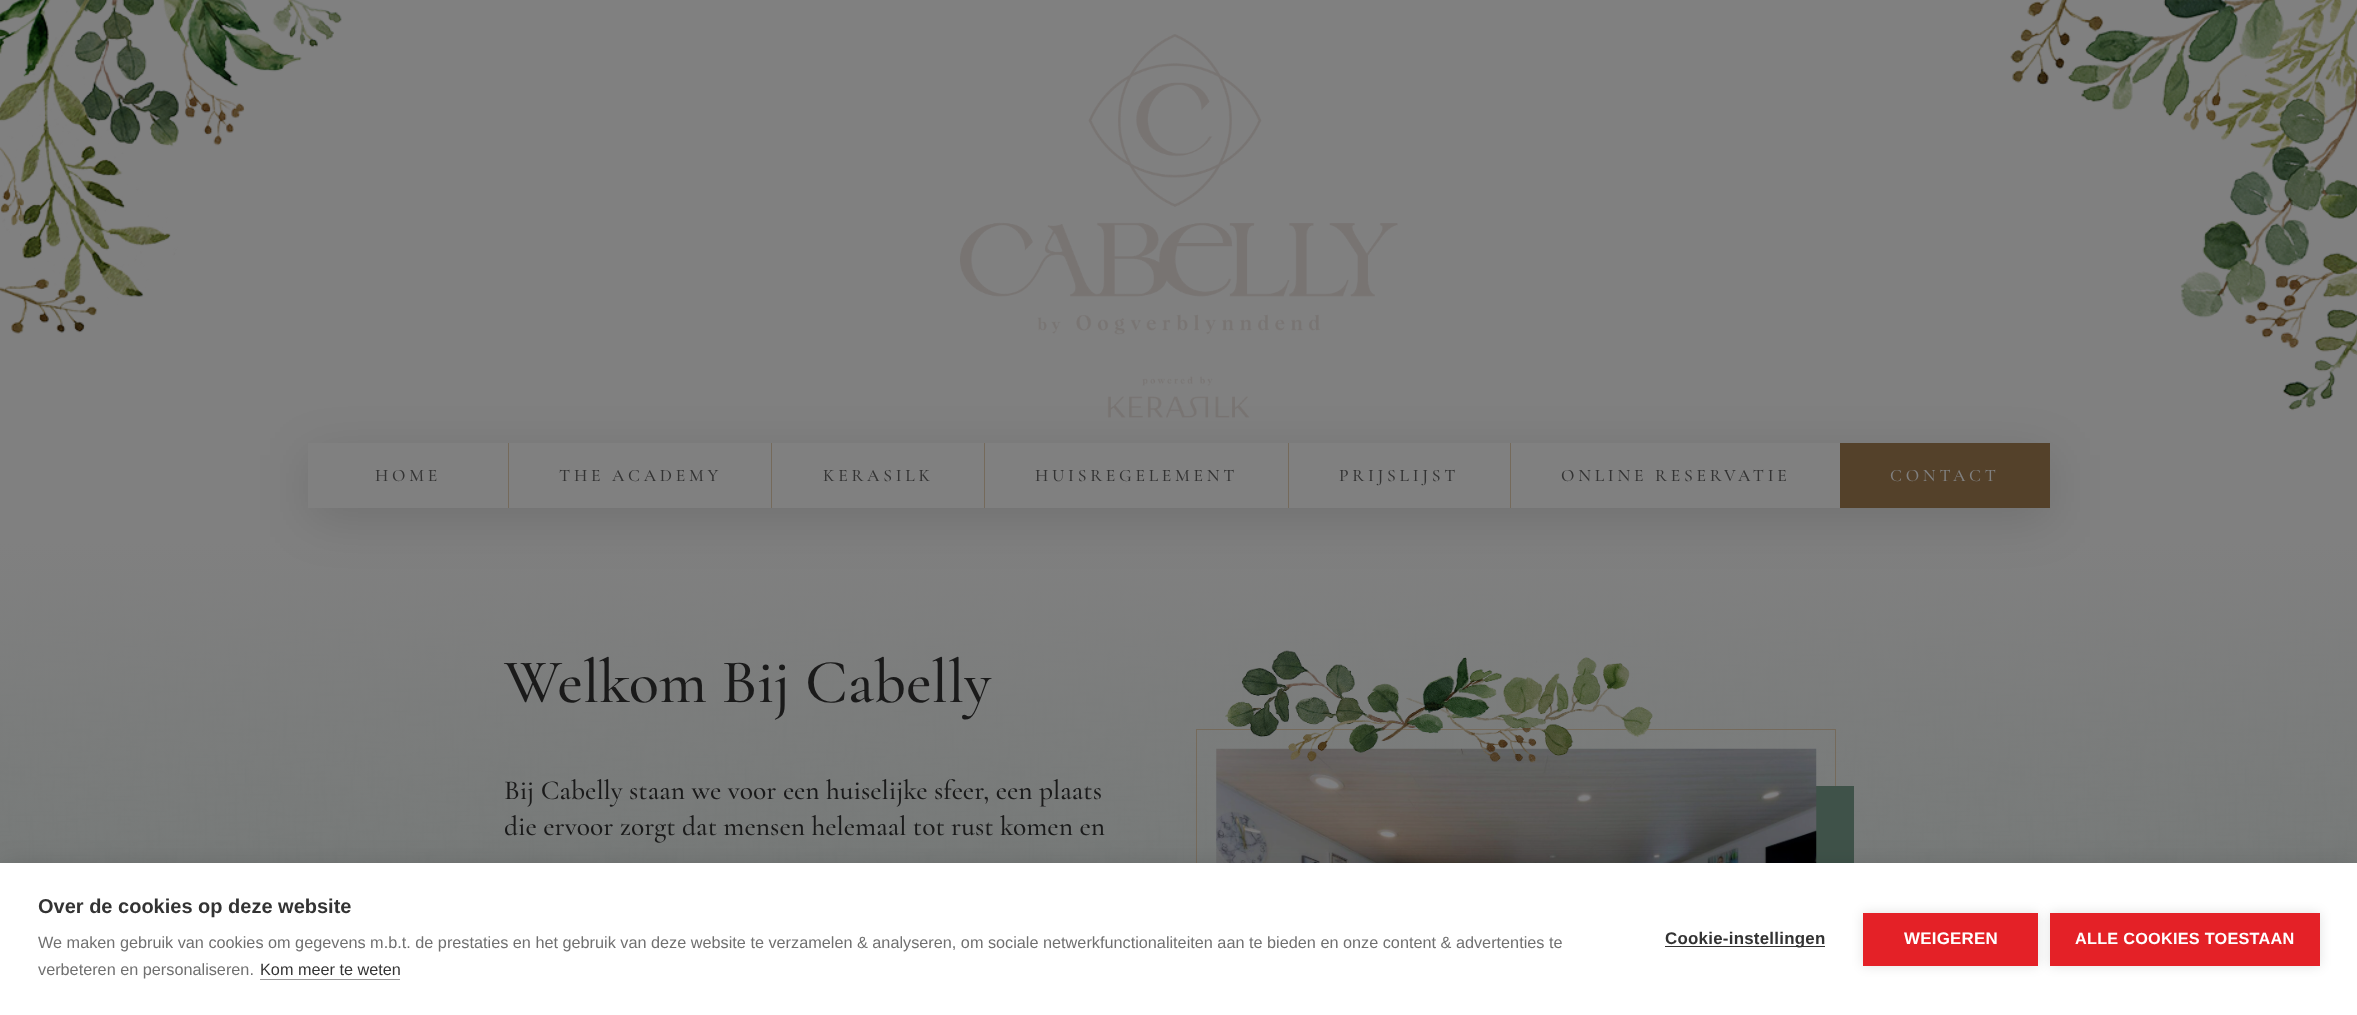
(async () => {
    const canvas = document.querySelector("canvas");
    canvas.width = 2357;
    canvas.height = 1015;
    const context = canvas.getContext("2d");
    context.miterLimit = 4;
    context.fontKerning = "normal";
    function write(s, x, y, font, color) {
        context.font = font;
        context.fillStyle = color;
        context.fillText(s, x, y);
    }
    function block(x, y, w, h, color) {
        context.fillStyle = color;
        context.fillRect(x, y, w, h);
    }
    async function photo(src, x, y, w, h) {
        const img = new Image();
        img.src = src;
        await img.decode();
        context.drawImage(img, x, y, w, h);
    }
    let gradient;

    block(0, 0, 2357, 1015, "rgb(128, 128, 128)");
    await photo("media/1.png", 0, 0, 342, 334);
    await photo("media/2.png", 2010, 0, 347, 411);
    await photo("media/3.png", 960, 34, 438, 384);
    await photo("media/4.png", 0, 544, 2357, 319);
    gradient = context.createLinearGradient(1179, 541, 1179, 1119);
    gradient.addColorStop(0, "rgb(128, 128, 128)");
    gradient.addColorStop(1, "rgba(128, 128, 128, 0)");
    context.fillStyle = gradient;
    context.fillRect(0, 544, 2357, 319);
    context.fillStyle = "rgba(0, 0, 0, 0.12)";
    context.filter = "blur(25px)";
    context.beginPath();
    context.rect(309, 455, 1742, 65);
    context.fill();
    context.filter = "none";
    block(308, 443, 200, 65, "rgb(128, 128, 128)");
    context.letterSpacing = "3.75px";
    write("HOME", 375, 481, "500 17.5px Cormorant Garamond", "rgb(51, 51, 51)");
    block(509, 443, 262, 65, "rgb(128, 128, 128)");
    block(508, 443, 1, 65, "rgb(117, 106, 91)");
    write("THE ACADEMY", 559, 481, "500 17.5px Cormorant Garamond", "rgb(51, 51, 51)");
    block(772, 443, 212, 65, "rgb(128, 128, 128)");
    block(771, 443, 1, 65, "rgb(117, 106, 91)");
    write("KERASILK", 823, 481, "500 17.5px Cormorant Garamond", "rgb(51, 51, 51)");
    block(985, 443, 303, 65, "rgb(128, 128, 128)");
    block(984, 443, 1, 65, "rgb(117, 106, 91)");
    write("HUISREGELEMENT", 1035, 481, "500 17.5px Cormorant Garamond", "rgb(51, 51, 51)");
    block(1289, 443, 221, 65, "rgb(128, 128, 128)");
    block(1288, 443, 1, 65, "rgb(117, 106, 91)");
    write("PRIJSLIJST", 1339, 481, "500 17.5px Cormorant Garamond", "rgb(51, 51, 51)");
    block(1511, 443, 329, 65, "rgb(128, 128, 128)");
    block(1510, 443, 1, 65, "rgb(117, 106, 91)");
    write("ONLINE RESERVATIE", 1561, 481, "500 17.5px Cormorant Garamond", "rgb(51, 51, 51)");
    block(1840, 443, 210, 65, "rgb(84, 65, 42)");
    write("CONTACT", 1890, 481, "500 17.5px Cormorant Garamond", "rgb(128, 128, 128)");
    context.letterSpacing = "0px";
    write("Welkom Bij Cabelly", 504, 702, "500 62.5px Cormorant Garamond", "rgb(26, 26, 26)");
    write("Bij Cabelly staan we voor een huiselijke sfeer, een plaats", 504, 799, "500 27.5px Cormorant Garamond", "rgb(26, 26, 26)");
    write("die ervoor zorgt dat mensen helemaal tot rust komen en", 504, 835, "500 27.5px Cormorant Garamond", "rgb(26, 26, 26)");
    context.strokeStyle = "rgb(117, 106, 91)";
    context.strokeRect(1196.5, 729.5, 639, 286);
    context.fillStyle = "rgb(63, 82, 73)";
    context.beginPath();
    context.moveTo(1254, 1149);
    context.lineTo(1254, 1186);
    context.lineTo(1854, 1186);
    context.lineTo(1854, 786);
    context.lineTo(1816, 786);
    context.lineTo(1816, 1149);
    context.closePath();
    context.fill();
    await photo("media/6.png", 1216, 748, 601, 115);
    await photo("media/5.png", 1225, 650, 428, 113);
    context.fillStyle = "rgba(0, 0, 0, 0.1)";
    context.filter = "blur(12.5px)";
    context.beginPath();
    context.rect(0, 863, 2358, 152);
    context.fill();
    context.filter = "none";
    block(0, 863, 2357, 152, "rgb(255, 255, 255)");
    write("Over de cookies op deze website", 38, 913, "bold 20px Liberation Sans", "rgb(51, 51, 51)");
    write("We maken gebruik van cookies om gegevens m.b.t. de prestaties en het gebruik van deze website te verzamelen & analyseren, om sociale netwerkfunctionaliteiten aan te bieden en onze content & advertenties te", 38, 948, "16.25px Liberation Sans", "rgb(112, 112, 112)");
    write("verbeteren en personaliseren.", 38, 975, "16.25px Liberation Sans", "rgb(112, 112, 112)");
    write("Kom meer te weten", 260, 975, "16.25px Liberation Sans", "rgb(51, 51, 51)");
    block(260, 979, 140, 1, "rgb(153, 153, 153)");
    block(1665, 946, 160, 1, "rgb(51, 51, 51)");
    context.letterSpacing = "0.25px";
    write("Cookie-instellingen", 1665, 944, "bold 16.9px Liberation Sans", "rgb(51, 51, 51)");
    context.fillStyle = "rgba(0, 0, 0, 0.12)";
    context.filter = "blur(6px)";
    context.beginPath();
    context.rect(1863, 913, 175, 53);
    context.fill();
    context.filter = "none";
    block(1863, 913, 175, 53, "rgb(228, 33, 39)");
    write("WEIGEREN", 1904, 944, "bold 16.9px Liberation Sans", "rgb(255, 255, 255)");
    context.fillStyle = "rgba(0, 0, 0, 0.12)";
    context.filter = "blur(6px)";
    context.beginPath();
    context.rect(2050, 913, 270, 53);
    context.fill();
    context.filter = "none";
    block(2050, 913, 270, 53, "rgb(228, 33, 39)");
    write("ALLE COOKIES TOESTAAN", 2075, 944, "bold 16.25px Liberation Sans", "rgb(255, 255, 255)");
})();
